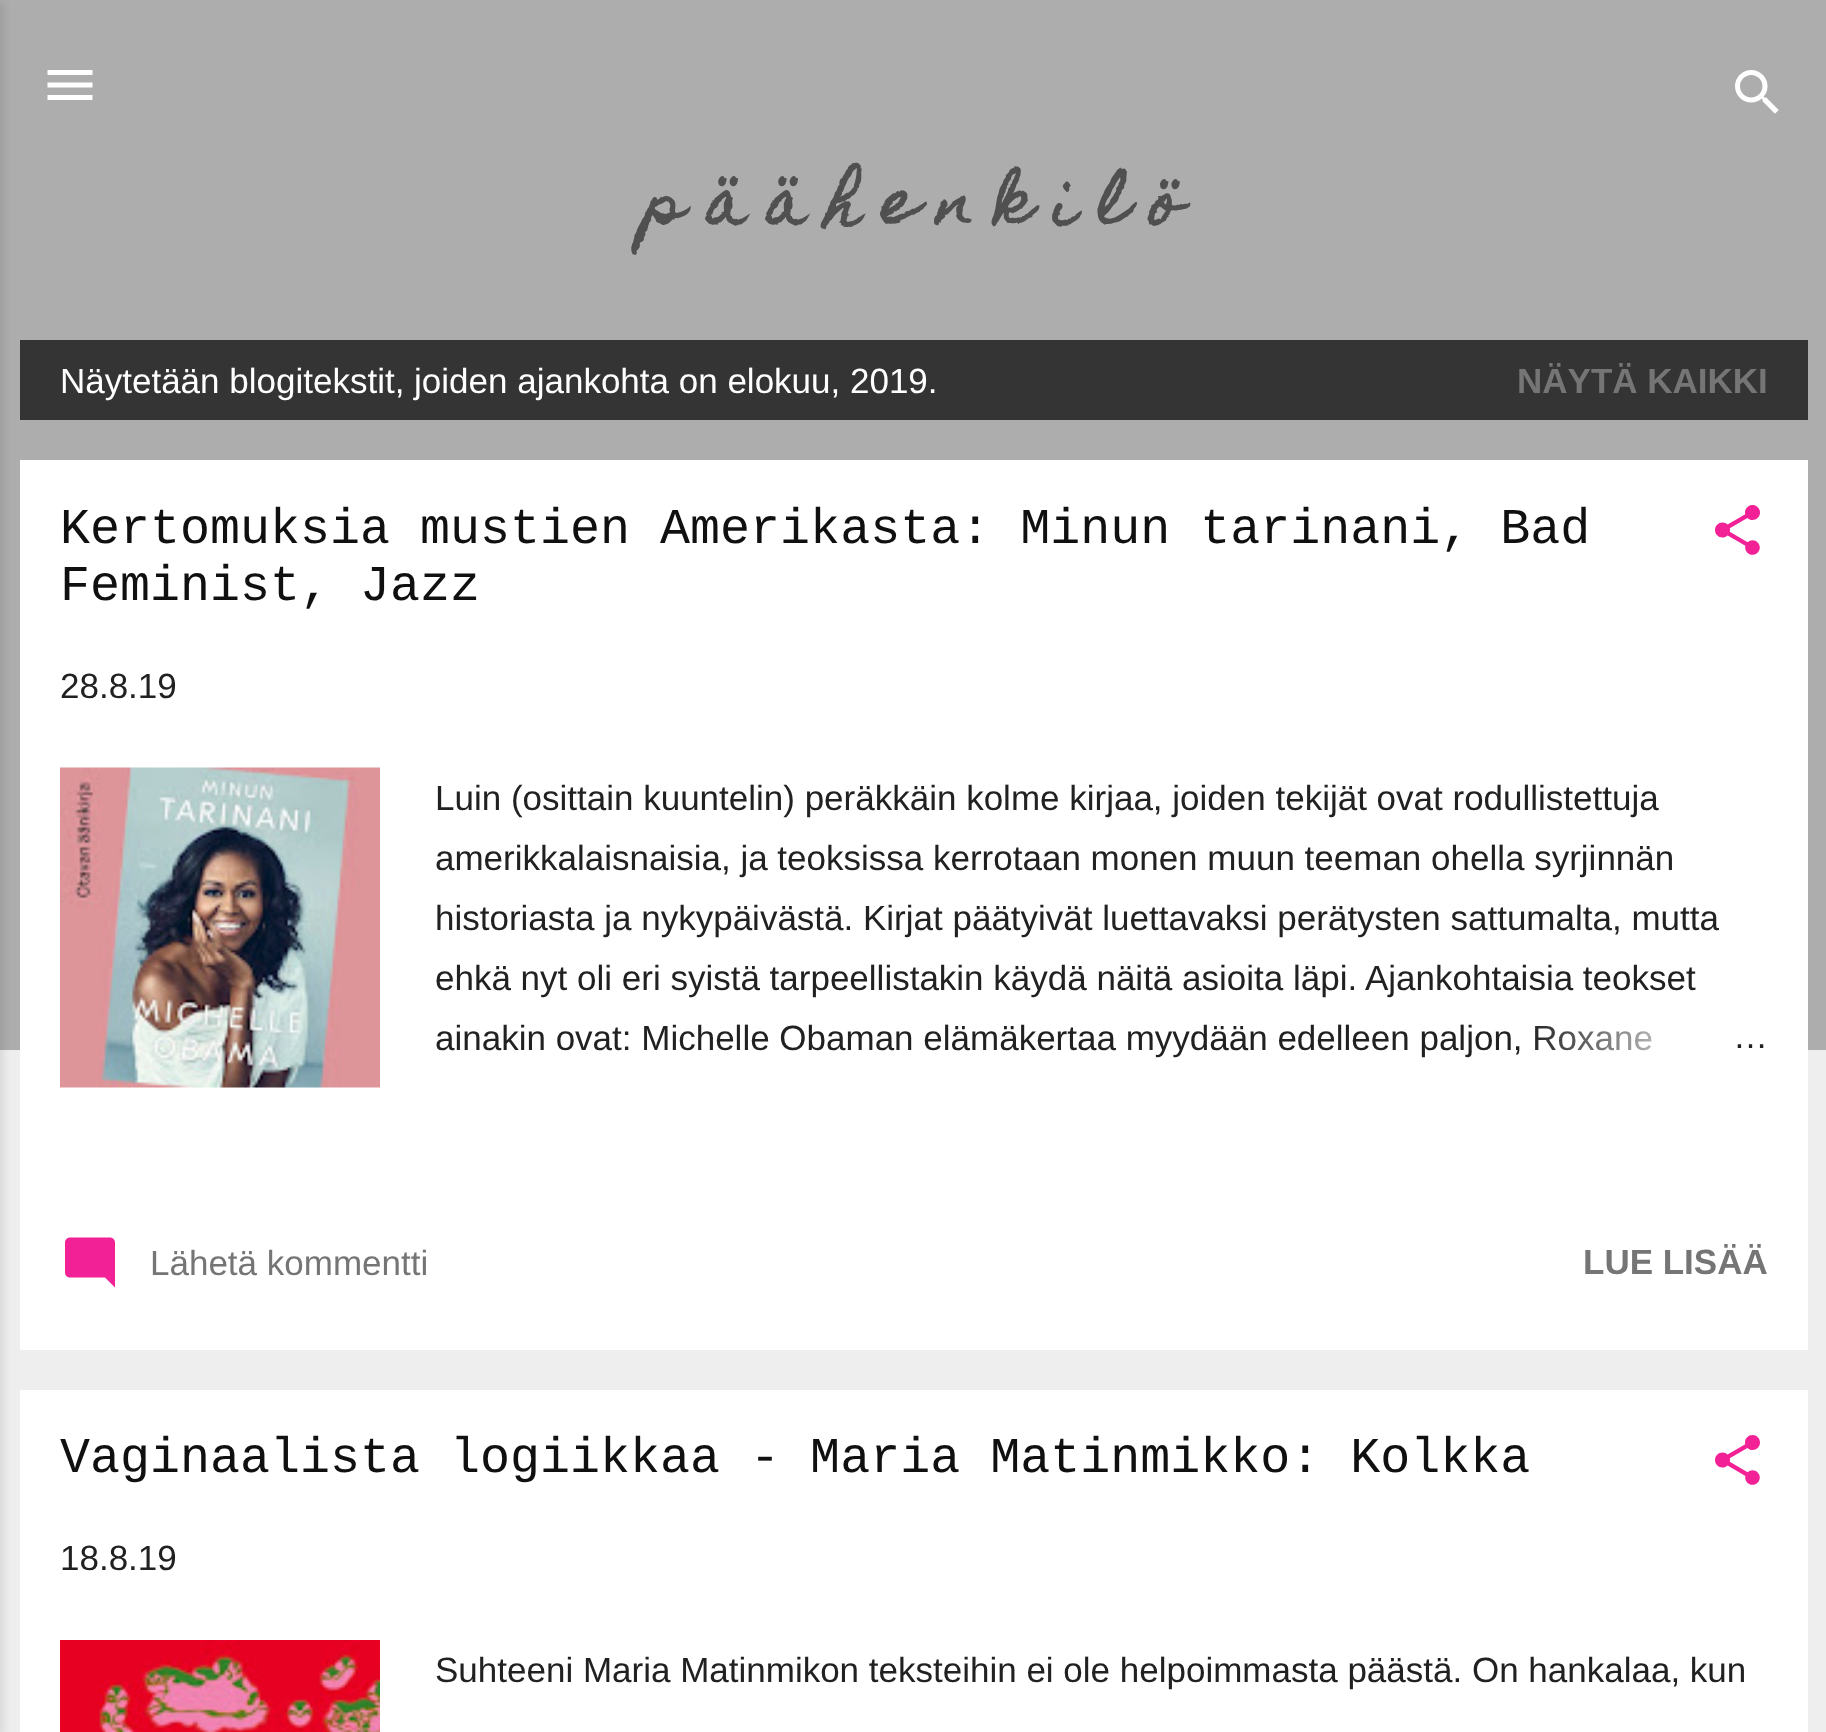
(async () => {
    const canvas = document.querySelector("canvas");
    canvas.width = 1826;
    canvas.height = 1732;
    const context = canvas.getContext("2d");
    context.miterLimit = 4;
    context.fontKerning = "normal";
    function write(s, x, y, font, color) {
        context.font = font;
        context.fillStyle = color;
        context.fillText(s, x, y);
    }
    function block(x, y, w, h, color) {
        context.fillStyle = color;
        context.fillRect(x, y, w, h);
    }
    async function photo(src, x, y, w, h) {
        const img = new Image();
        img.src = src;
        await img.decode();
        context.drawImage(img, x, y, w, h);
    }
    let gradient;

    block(0, 0, 1826, 1732, "rgb(238, 238, 238)");
    block(0, 0, 1826, 1050, "rgb(173, 173, 173)");
    context.fillStyle = "rgba(0, 0, 0, 0.1)";
    context.filter = "blur(4px)";
    context.beginPath();
    context.rect(-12, 3, 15, 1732);
    context.fill();
    context.filter = "none";
    await photo("media/1.png", 47, 70, 46, 30);
    await photo("media/2.png", 1735, 70, 44, 44);
    write("p ä ä h e n k i l ö", 645, 223, "bold 60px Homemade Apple", "rgb(80, 80, 80)");
    block(20, 340, 1788, 80, "rgb(52, 52, 52)");
    write("Näytetään blogitekstit, joiden ajankohta on elokuu, 2019.", 60, 393, "35px Liberation Sans", "rgb(255, 255, 255)");
    write("NÄYTÄ KAIKKI", 1517, 393, "bold 35px Liberation Sans", "rgb(117, 117, 117)");
    block(20, 460, 1788, 890, "rgb(255, 255, 255)");
    write("Kertomuksia mustien Amerikasta: Minun tarinani, Bad", 60, 543, "50px Liberation Mono", "rgb(16, 16, 16)");
    write("Feminist, Jazz", 60, 600, "50px Liberation Mono", "rgb(16, 16, 16)");
    await photo("media/3.png", 1715, 505, 45, 50);
    write("28.8.19", 60, 698, "35px Liberation Sans", "rgb(33, 33, 33)");
    await photo("media/4.png", 60, 767, 320, 321);
    write("Luin (osittain kuuntelin) peräkkäin kolme kirjaa, joiden tekijät ovat rodullistettuja", 435, 810, "35px Liberation Sans", "rgb(33, 33, 33)");
    write("amerikkalaisnaisia, ja teoksissa kerrotaan monen muun teeman ohella syrjinnän", 435, 870, "35px Liberation Sans", "rgb(33, 33, 33)");
    write("historiasta ja nykypäivästä. Kirjat päätyivät luettavaksi perätysten sattumalta, mutta", 435, 930, "35px Liberation Sans", "rgb(33, 33, 33)");
    write("ehkä nyt oli eri syistä tarpeellistakin käydä näitä asioita läpi. Ajankohtaisia teokset", 435, 990, "35px Liberation Sans", "rgb(33, 33, 33)");
    write("ainakin ovat: Michelle Obaman elämäkertaa myydään edelleen paljon, Roxane", 435, 1050, "35px Liberation Sans", "rgb(33, 33, 33)");
    gradient = context.createLinearGradient(1768, 1038, 1528, 1038);
    gradient.addColorStop(0, "rgb(255, 255, 255)");
    gradient.addColorStop(0.2, "rgb(255, 255, 255)");
    gradient.addColorStop(1, "rgba(255, 255, 255, 0)");
    context.fillStyle = gradient;
    context.fillRect(1535, 1026, 117, 25);
    write("…", 1733, 1048, "35px Liberation Sans", "rgb(33, 33, 33)");
    await photo("media/5.png", 65, 1237, 50, 51);
    write("Lähetä kommentti", 150, 1275, "35px Liberation Sans", "rgb(117, 117, 117)");
    write("LUE LISÄÄ", 1583, 1274, "bold 35px Liberation Sans", "rgb(117, 117, 117)");
    block(20, 1390, 1788, 342, "rgb(255, 255, 255)");
    write("Vaginaalista logiikkaa - Maria Matinmikko: Kolkka", 60, 1472, "50px Liberation Mono", "rgb(16, 16, 16)");
    await photo("media/6.png", 1715, 1435, 45, 50);
    write("18.8.19", 60, 1570, "35px Liberation Sans", "rgb(33, 33, 33)");
    await photo("media/7.png", 60, 1640, 320, 92);
    write("Suhteeni Maria Matinmikon teksteihin ei ole helpoimmasta päästä. On hankalaa, kun", 435, 1682, "35px Liberation Sans", "rgb(33, 33, 33)");
})();
